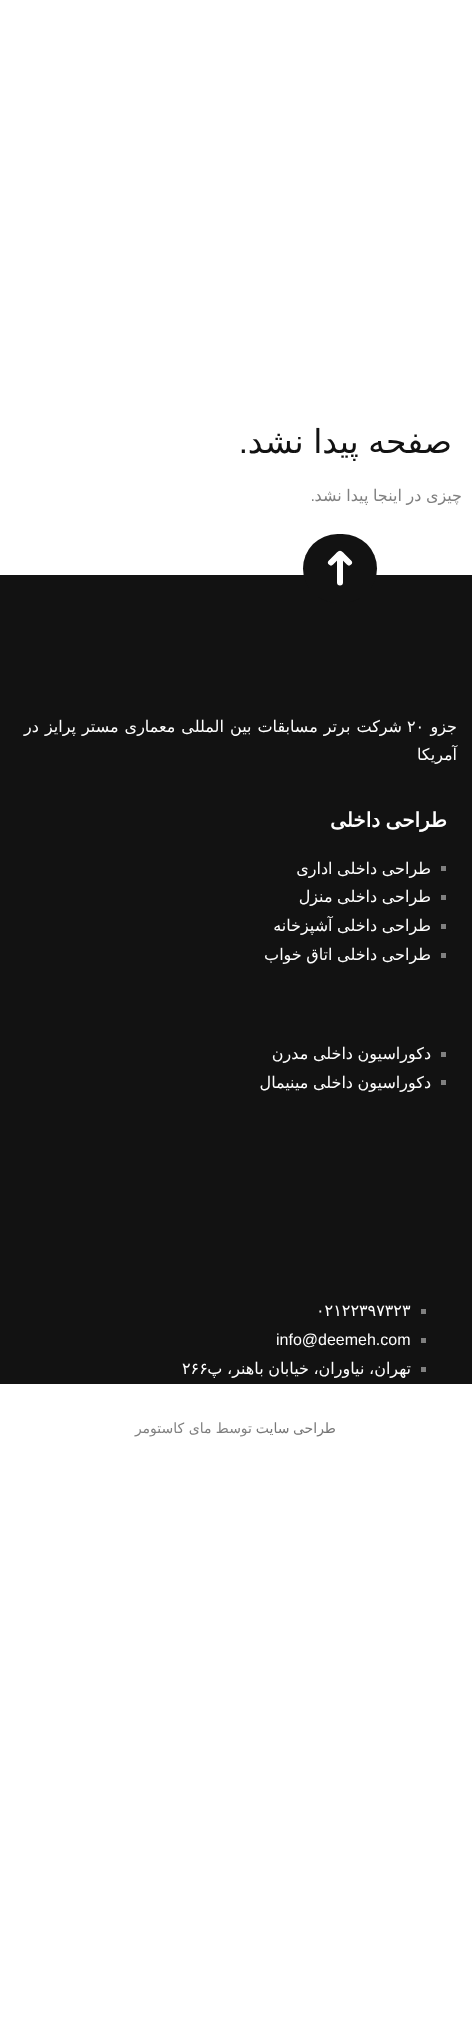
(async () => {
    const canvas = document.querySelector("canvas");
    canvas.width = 472;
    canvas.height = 2020;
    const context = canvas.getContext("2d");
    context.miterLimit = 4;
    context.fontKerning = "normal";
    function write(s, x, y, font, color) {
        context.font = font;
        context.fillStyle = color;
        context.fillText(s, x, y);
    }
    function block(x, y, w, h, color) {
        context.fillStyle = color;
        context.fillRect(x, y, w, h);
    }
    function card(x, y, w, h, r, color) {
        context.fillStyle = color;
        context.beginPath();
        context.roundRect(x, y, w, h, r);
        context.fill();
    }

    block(0, 0, 472, 2020, "rgb(255, 255, 255)");
    context.wordSpacing = "-1px";
    context.direction = "rtl";
    write("صفحه پیدا نشد", 452, 453, "33px DejaVu Sans", "rgb(18, 18, 18)");
    context.wordSpacing = "0px";
    write(".", 248, 453, "33px Liberation Sans", "rgb(18, 18, 18)");
    context.wordSpacing = "-0.5px";
    write("چیزی در اینجا پیدا نشد", 462, 501, "16px DejaVu Sans", "rgb(128, 128, 128)");
    context.wordSpacing = "0px";
    write(".", 315, 501, "16px Liberation Sans", "rgb(128, 128, 128)");
    block(0, 575, 472, 809, "rgb(18, 18, 18)");
    card(303, 534, 74, 69, 34.5, "rgb(18, 18, 18)");
    context.beginPath();
    context.moveTo(340, 555);
    context.lineTo(340, 582.5);
    context.moveTo(331, 562.5);
    context.lineTo(338, 555.5);
    context.bezierCurveTo(340.5, 553, 339.5, 553, 342, 555.5);
    context.lineTo(349, 562.5);
    context.strokeStyle = "rgb(255, 255, 255)";
    context.lineWidth = 6;
    context.lineCap = "round";
    context.lineJoin = "round";
    context.stroke();
    write("جزو", 457, 732, "16px DejaVu Sans", "rgb(255, 255, 255)");
    context.direction = "ltr";
    write("۲۰", 407, 732, "16px DejaVu Sans", "rgb(255, 255, 255)");
    context.wordSpacing = "1px";
    context.direction = "rtl";
    write("شرکت برتر مسابقات بین المللی معماری مستر پرایز در", 402, 732, "16px DejaVu Sans", "rgb(255, 255, 255)");
    context.wordSpacing = "0px";
    write("آمریکا", 457, 760, "16px DejaVu Sans", "rgb(255, 255, 255)");
    context.wordSpacing = "-1px";
    write("طراحی داخلی", 447, 827, "bold 20px DejaVu Sans", "rgb(255, 255, 255)");
    context.fillStyle = "rgb(128, 128, 128)";
    context.beginPath();
    context.moveTo(446, 871);
    context.lineTo(441, 871);
    context.lineTo(441, 866);
    context.lineTo(446, 866);
    context.closePath();
    context.fill();
    context.wordSpacing = "-0.5px";
    write("طراحی داخلی اداری", 431, 874, "16px DejaVu Sans", "rgb(255, 255, 255)");
    context.fillStyle = "rgb(128, 128, 128)";
    context.beginPath();
    context.moveTo(446, 900);
    context.lineTo(441, 900);
    context.lineTo(441, 895);
    context.lineTo(446, 895);
    context.closePath();
    context.fill();
    write("طراحی داخلی منزل", 431, 902, "16px DejaVu Sans", "rgb(255, 255, 255)");
    context.fillStyle = "rgb(128, 128, 128)";
    context.beginPath();
    context.moveTo(446, 929);
    context.lineTo(441, 929);
    context.lineTo(441, 924);
    context.lineTo(446, 924);
    context.closePath();
    context.fill();
    write("طراحی داخلی آشپزخانه", 431, 931, "16px DejaVu Sans", "rgb(255, 255, 255)");
    context.fillStyle = "rgb(128, 128, 128)";
    context.beginPath();
    context.moveTo(446, 958);
    context.lineTo(441, 958);
    context.lineTo(441, 953);
    context.lineTo(446, 953);
    context.closePath();
    context.fill();
    write("طراحی داخلی اتاق خواب", 431, 960, "16px DejaVu Sans", "rgb(255, 255, 255)");
    context.fillStyle = "rgb(128, 128, 128)";
    context.beginPath();
    context.moveTo(446, 1057);
    context.lineTo(441, 1057);
    context.lineTo(441, 1052);
    context.lineTo(446, 1052);
    context.closePath();
    context.fill();
    write("دکوراسیون داخلی مدرن", 431, 1059, "16px DejaVu Sans", "rgb(255, 255, 255)");
    context.fillStyle = "rgb(128, 128, 128)";
    context.beginPath();
    context.moveTo(446, 1085);
    context.lineTo(441, 1085);
    context.lineTo(441, 1080);
    context.lineTo(446, 1080);
    context.closePath();
    context.fill();
    write("دکوراسیون داخلی مینیمال", 431, 1088, "16px DejaVu Sans", "rgb(255, 255, 255)");
    context.fillStyle = "rgb(128, 128, 128)";
    context.beginPath();
    context.moveTo(426, 1314);
    context.lineTo(421, 1314);
    context.lineTo(421, 1309);
    context.lineTo(426, 1309);
    context.closePath();
    context.fill();
    context.wordSpacing = "0px";
    context.direction = "ltr";
    write("۰۲۱۲۲۳۹۷۳۲۳", 316, 1316, "16px DejaVu Sans", "rgb(255, 255, 255)");
    context.fillStyle = "rgb(128, 128, 128)";
    context.beginPath();
    context.moveTo(426, 1343);
    context.lineTo(421, 1343);
    context.lineTo(421, 1338);
    context.lineTo(426, 1338);
    context.closePath();
    context.fill();
    write("info@deemeh.com", 276, 1345, "16px Liberation Sans", "rgb(255, 255, 255)");
    context.fillStyle = "rgb(128, 128, 128)";
    context.beginPath();
    context.moveTo(426, 1372);
    context.lineTo(421, 1372);
    context.lineTo(421, 1367);
    context.lineTo(426, 1367);
    context.closePath();
    context.fill();
    context.wordSpacing = "-0.5px";
    context.direction = "rtl";
    write("تهران، نیاوران، خیابان باهنر، پ", 411, 1374, "16px DejaVu Sans", "rgb(255, 255, 255)");
    context.wordSpacing = "0px";
    context.direction = "ltr";
    write("۲۶۶", 182, 1374, "16px DejaVu Sans", "rgb(255, 255, 255)");
    context.wordSpacing = "-1px";
    context.direction = "rtl";
    write("طراحی سایت", 336, 1433, "14px DejaVu Sans", "rgb(118, 118, 118)");
    context.wordSpacing = "0px";
    write("توسط مای کاستومر", 252, 1433, "14px DejaVu Sans", "rgb(128, 128, 128)");
})();
